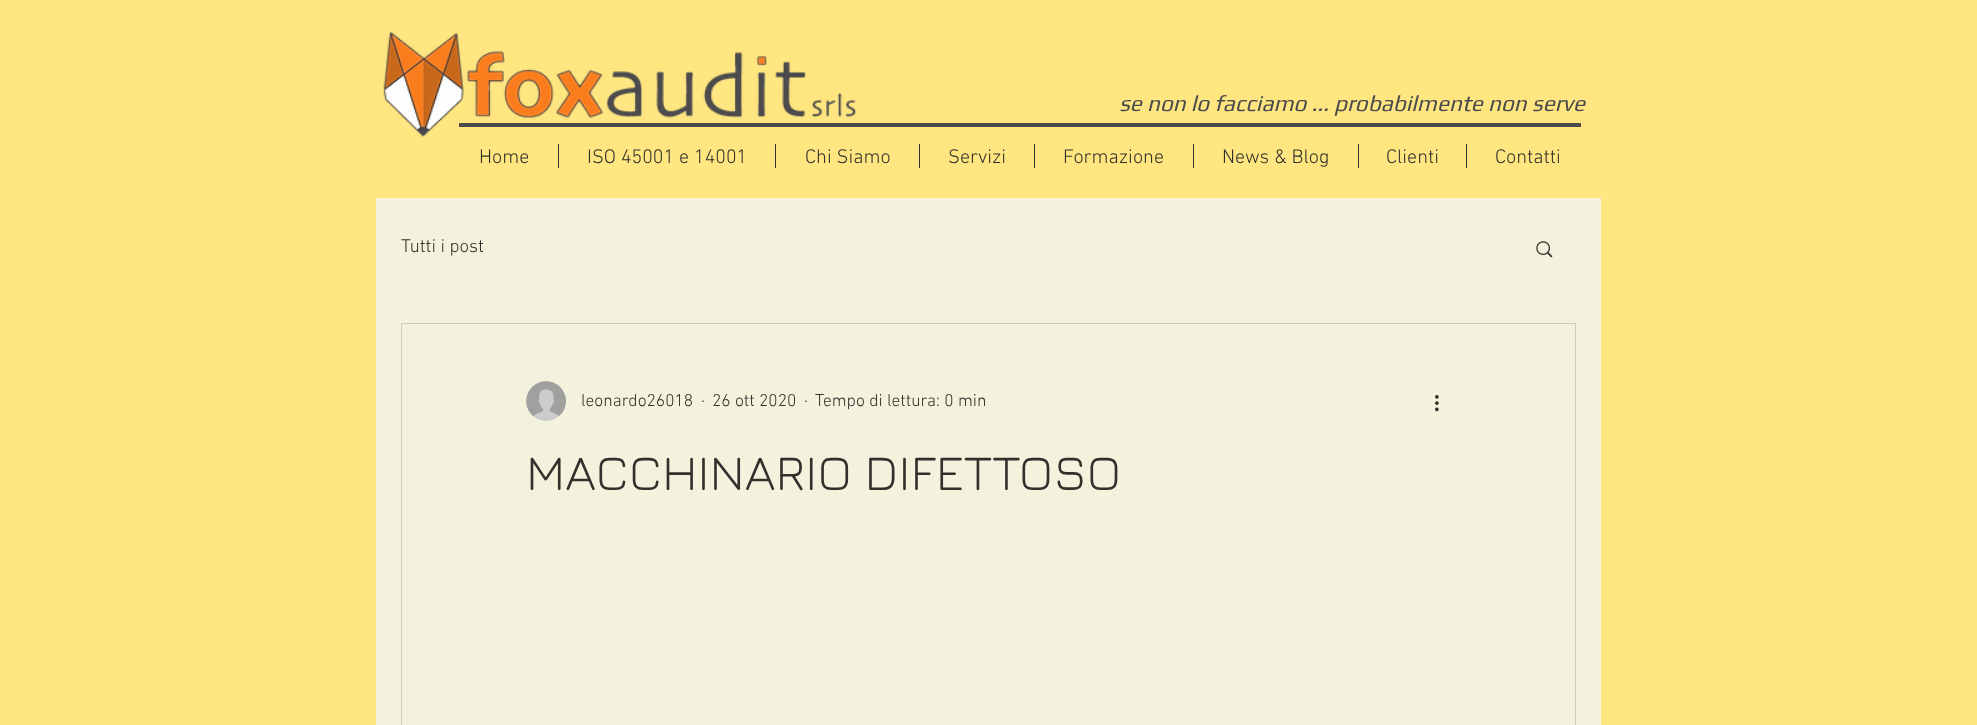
(async () => {
    const canvas = document.querySelector("canvas");
    canvas.width = 1977;
    canvas.height = 725;
    const context = canvas.getContext("2d");
    context.miterLimit = 4;
    context.fontKerning = "normal";
    function write(s, x, y, font, color) {
        context.font = font;
        context.fillStyle = color;
        context.fillText(s, x, y);
    }
    function block(x, y, w, h, color) {
        context.fillStyle = color;
        context.fillRect(x, y, w, h);
    }
    async function photo(src, x, y, w, h) {
        const img = new Image();
        img.src = src;
        await img.decode();
        context.drawImage(img, x, y, w, h);
    }

    block(0, 0, 1977, 725, "rgb(255, 230, 128)");
    await photo("media/1.png", 383, 32, 474, 105);
    write("se non lo facciamo ... probabilmente non serve", 1119, 111, "italic 22.5px Play", "rgb(75, 75, 77)");
    block(459, 123, 1122, 4, "rgb(75, 75, 77)");
    write("Home", 479, 163, "300 20px 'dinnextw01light'", "rgb(49, 48, 44)");
    block(558, 144, 1, 24, "rgb(49, 48, 44)");
    write("ISO 45001 e 14001", 587, 163, "300 20px 'dinnextw01light'", "rgb(49, 48, 44)");
    block(775, 144, 1, 24, "rgb(49, 48, 44)");
    write("Chi Siamo", 805, 163, "300 20px 'dinnextw01light'", "rgb(49, 48, 44)");
    block(919, 144, 1, 24, "rgb(49, 48, 44)");
    write("Servizi", 948, 163, "300 20px 'dinnextw01light'", "rgb(49, 48, 44)");
    block(1034, 144, 1, 24, "rgb(49, 48, 44)");
    write("Formazione", 1063, 163, "300 20px 'dinnextw01light'", "rgb(49, 48, 44)");
    block(1193, 144, 1, 24, "rgb(49, 48, 44)");
    write("News & Blog", 1222, 163, "300 20px 'dinnextw01light'", "rgb(49, 48, 44)");
    block(1358, 144, 1, 24, "rgb(49, 48, 44)");
    write("Clienti", 1386, 163, "300 20px 'dinnextw01light'", "rgb(49, 48, 44)");
    block(1466, 144, 1, 24, "rgb(49, 48, 44)");
    write("Contatti", 1495, 163, "300 20px 'dinnextw01light'", "rgb(49, 48, 44)");
    block(376, 198, 1225, 527, "rgb(243, 242, 220)");
    write("Tutti i post", 401, 252, "300 18.75px 'dinnextw01light'", "rgb(49, 48, 44)");
    await photo("media/2.png", 1536, 241, 17, 17);
    context.strokeStyle = "rgb(206, 206, 187)";
    context.strokeRect(401.5, 323.5, 1174, 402);
    await photo("media/3.png", 526, 381, 40, 40);
    write("leonardo26018", 581, 406, "300 17.5px 'dinnextw01light'", "rgb(49, 48, 44)");
    write("·", 701, 406, "300 17.5px 'dinnextw01light'", "rgb(49, 48, 44)");
    write("26 ott 2020", 712, 406, "300 17.5px 'dinnextw01light'", "rgb(49, 48, 44)");
    write("·", 804, 406, "300 17.5px 'dinnextw01light'", "rgb(49, 48, 44)");
    write("Tempo di lettura: 0 min", 815, 406, "300 17.5px 'dinnextw01light'", "rgb(49, 48, 44)");
    await photo("media/4.png", 1435, 395, 4, 17);
    write("MACCHINARIO DIFETTOSO", 526, 490, "50px Jura", "rgb(49, 48, 44)");
})();
